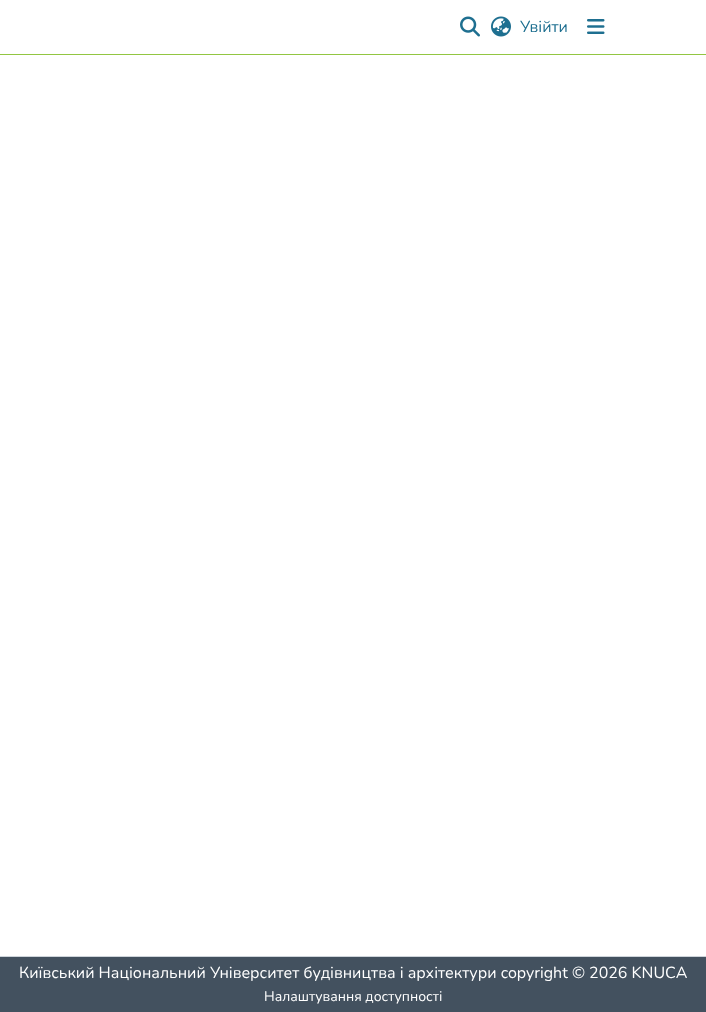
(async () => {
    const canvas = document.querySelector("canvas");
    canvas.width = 706;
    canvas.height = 1012;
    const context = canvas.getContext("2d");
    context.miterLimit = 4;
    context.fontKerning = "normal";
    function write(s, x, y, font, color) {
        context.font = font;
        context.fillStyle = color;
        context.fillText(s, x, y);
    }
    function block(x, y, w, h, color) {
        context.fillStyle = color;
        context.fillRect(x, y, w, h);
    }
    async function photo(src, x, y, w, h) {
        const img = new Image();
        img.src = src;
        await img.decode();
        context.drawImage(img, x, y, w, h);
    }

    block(0, 0, 706, 1012, "rgb(255, 255, 255)");
    block(0, 54, 706, 1, "rgb(146, 198, 66)");
    await photo("media/1.png", 460, 16, 20, 21);
    await photo("media/2.png", 491, 16, 20, 21);
    write("Увійти", 520, 32, "16px Nunito", "rgb(30, 111, 144)");
    await photo("media/3.png", 587, 19, 18, 15);
    block(0, 957, 706, 55, "rgb(67, 81, 95)");
    block(0, 956, 706, 1, "rgb(206, 212, 218)");
    write("Київський Національний Університет будівництва і архітектури copyright © 2026 KNUCA", 19, 978, "16px Nunito", "rgb(255, 255, 255)");
    write("Налаштування доступності", 264, 1001, "14px Nunito", "rgb(255, 255, 255)");
})();
